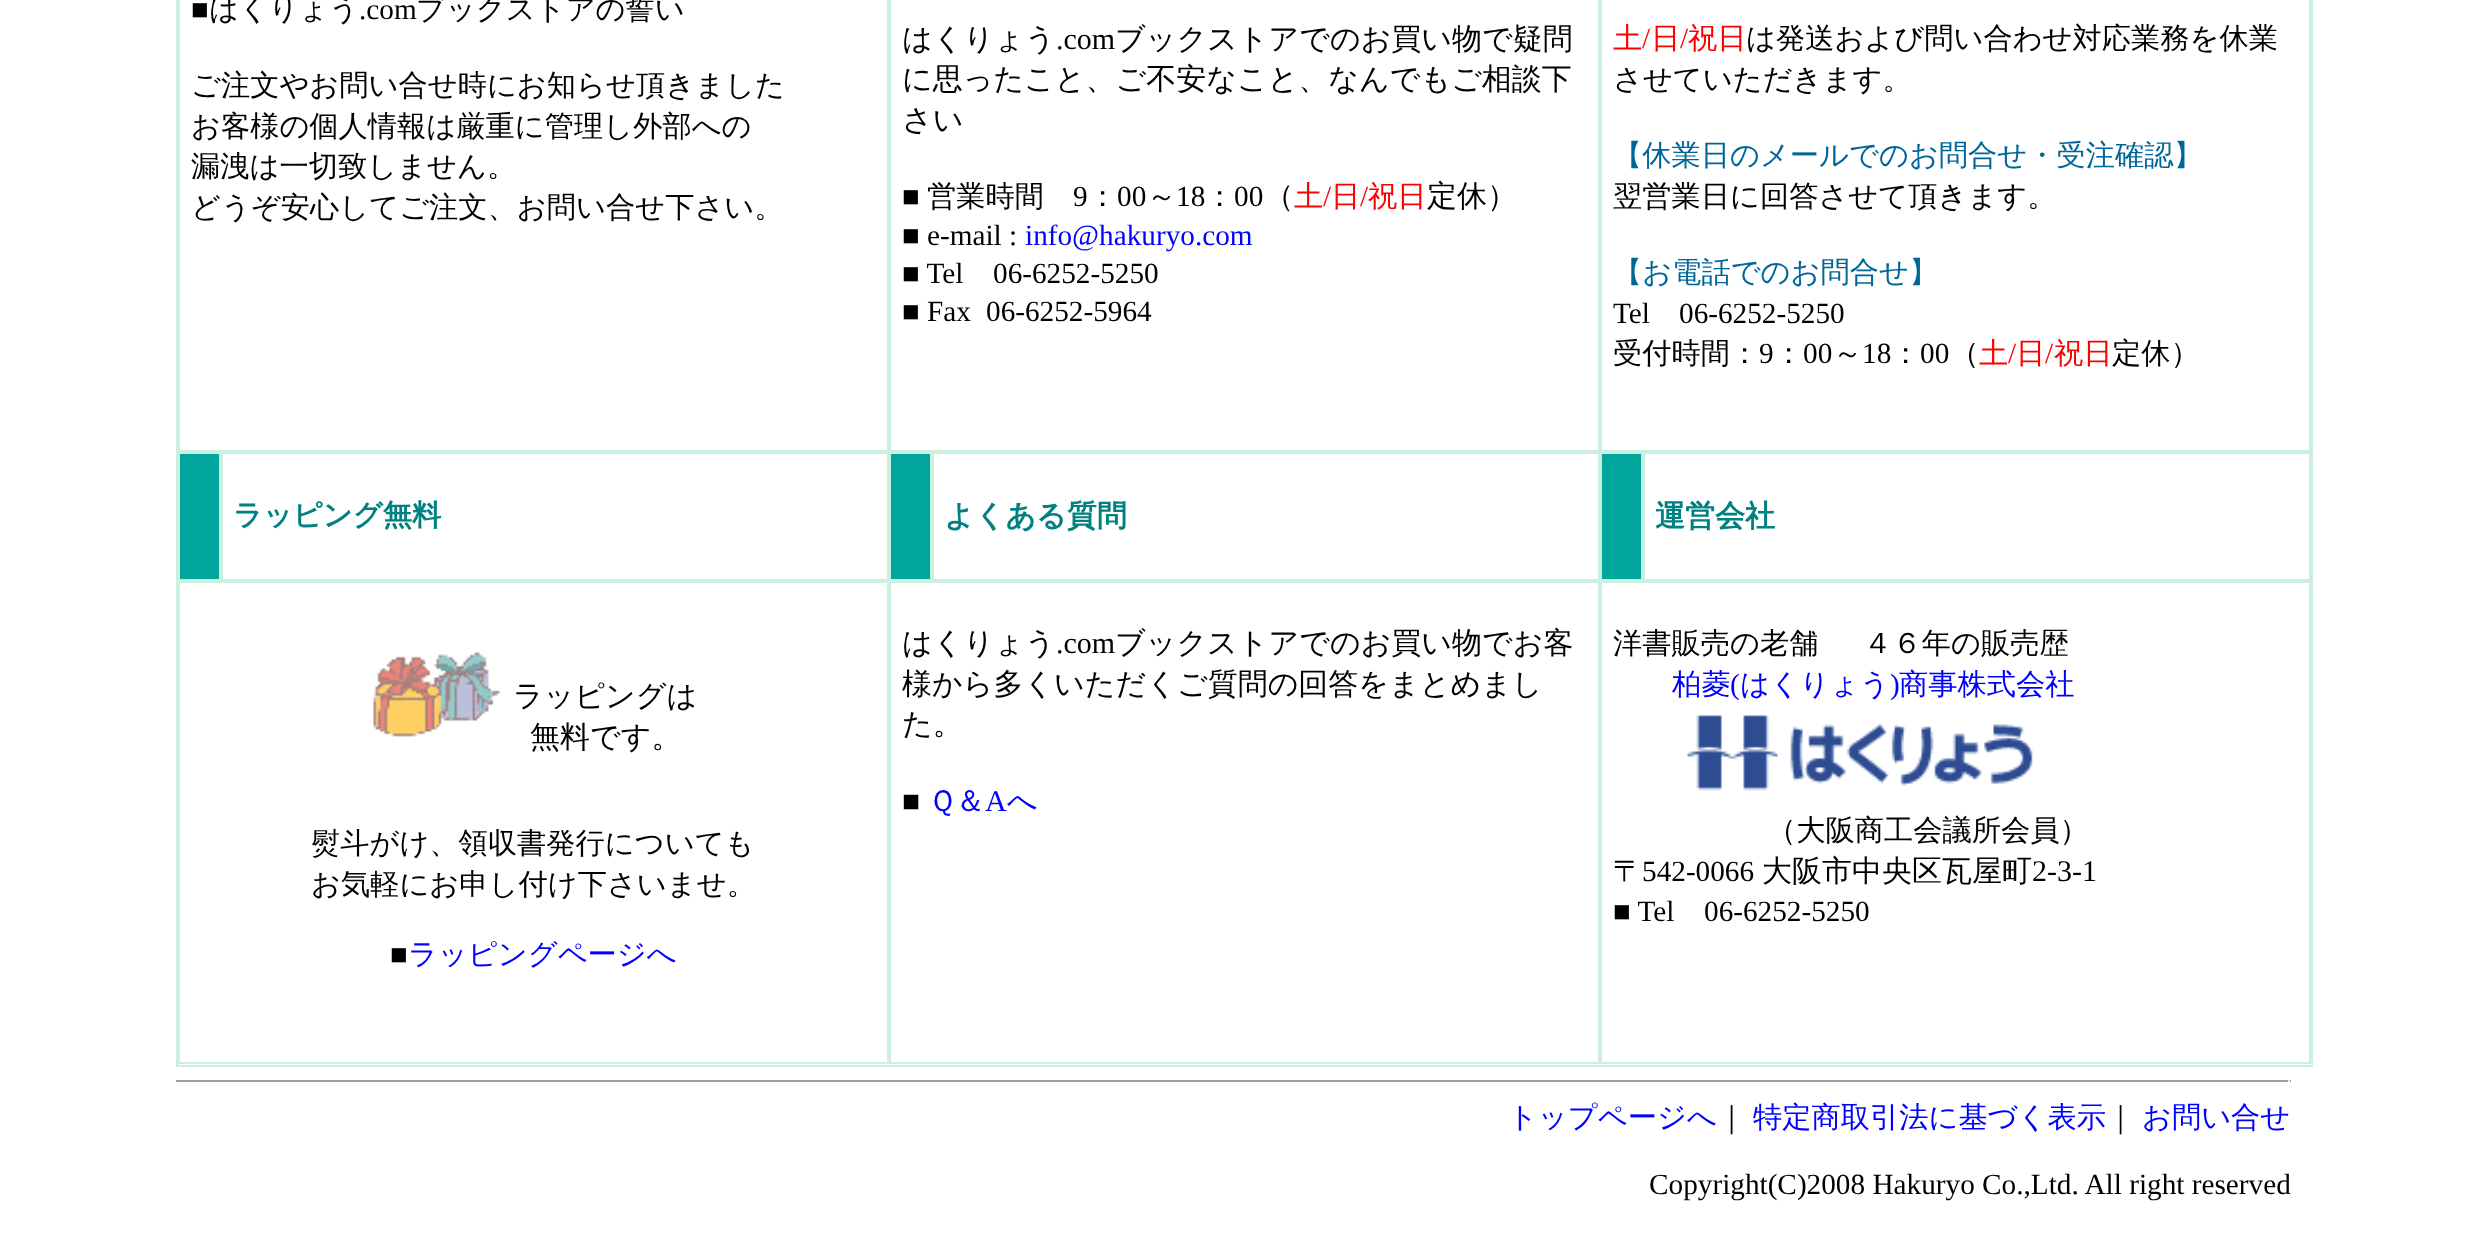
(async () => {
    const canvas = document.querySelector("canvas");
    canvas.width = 2465;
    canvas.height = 1244;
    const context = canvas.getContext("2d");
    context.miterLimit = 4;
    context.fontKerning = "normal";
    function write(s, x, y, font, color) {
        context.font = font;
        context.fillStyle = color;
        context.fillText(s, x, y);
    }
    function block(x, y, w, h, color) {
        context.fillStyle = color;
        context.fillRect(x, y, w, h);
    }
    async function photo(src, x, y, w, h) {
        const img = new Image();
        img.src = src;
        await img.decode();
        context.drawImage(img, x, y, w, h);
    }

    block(0, 0, 2465, 1244, "rgb(255, 255, 255)");
    context.strokeStyle = "rgb(204, 240, 223)";
    context.lineWidth = 2;
    context.strokeRect(177, -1, 2135, 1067);
    context.strokeRect(179, -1, 709, 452);
    write("■", 191, 19, "29.25px Liberation Serif", "rgb(0, 0, 0)");
    write("はくりょう", 209, 19, "500 29.25px WenQuanYi Zen Hei", "rgb(0, 0, 0)");
    write(".com", 359, 19, "29.25px Liberation Serif", "rgb(0, 0, 0)");
    write("ブックストアの誓い", 416, 19, "500 29.25px WenQuanYi Zen Hei", "rgb(0, 0, 0)");
    write("ご注文やお問い合せ時にお知らせ頂きました", 191, 95, "500 29.25px WenQuanYi Zen Hei", "rgb(0, 0, 0)");
    write("お客様の個人情報は厳重に管理し外部への", 191, 136, "500 29.25px WenQuanYi Zen Hei", "rgb(0, 0, 0)");
    write("漏洩は一切致しません。", 191, 176, "500 29.25px WenQuanYi Zen Hei", "rgb(0, 0, 0)");
    write("どうぞ安心してご注文、お問い合せ下さい。", 191, 217, "500 29.25px WenQuanYi Zen Hei", "rgb(0, 0, 0)");
    context.strokeRect(890, -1, 709, 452);
    write("はくりょう", 902, 49, "500 30px WenQuanYi Zen Hei", "rgb(0, 0, 0)");
    write(".com", 1056, 49, "30px Liberation Serif", "rgb(0, 0, 0)");
    write("ブックストアでのお買い物で疑問", 1115, 49, "500 30px WenQuanYi Zen Hei", "rgb(0, 0, 0)");
    write("に思ったこと、ご不安なこと、なんでもご相談下", 902, 89, "500 30px WenQuanYi Zen Hei", "rgb(0, 0, 0)");
    write("さい", 902, 130, "500 30px WenQuanYi Zen Hei", "rgb(0, 0, 0)");
    write("■", 902, 206, "29.25px Liberation Serif", "rgb(0, 0, 0)");
    write("営業時間", 927, 206, "500 29.25px WenQuanYi Zen Hei", "rgb(0, 0, 0)");
    write("9", 1073, 206, "29.25px Liberation Serif", "rgb(0, 0, 0)");
    write("：", 1088, 206, "500 29.25px WenQuanYi Zen Hei", "rgb(0, 0, 0)");
    write("00", 1117, 206, "29.25px Liberation Serif", "rgb(0, 0, 0)");
    write("～", 1147, 206, "500 29.25px WenQuanYi Zen Hei", "rgb(0, 0, 0)");
    write("18", 1176, 206, "29.25px Liberation Serif", "rgb(0, 0, 0)");
    write("：", 1205, 206, "500 29.25px WenQuanYi Zen Hei", "rgb(0, 0, 0)");
    write("00", 1234, 206, "29.25px Liberation Serif", "rgb(0, 0, 0)");
    write("（", 1264, 206, "500 30px WenQuanYi Zen Hei", "rgb(0, 0, 0)");
    write("土", 1294, 206, "500 29.25px WenQuanYi Zen Hei", "rgb(255, 0, 0)");
    write("/", 1323, 206, "29.25px Liberation Serif", "rgb(255, 0, 0)");
    write("日", 1331, 206, "500 29.25px WenQuanYi Zen Hei", "rgb(255, 0, 0)");
    write("/", 1360, 206, "29.25px Liberation Serif", "rgb(255, 0, 0)");
    write("祝日", 1368, 206, "500 29.25px WenQuanYi Zen Hei", "rgb(255, 0, 0)");
    write("定休）", 1427, 206, "500 30px WenQuanYi Zen Hei", "rgb(0, 0, 0)");
    write("■ e-mail :", 902, 245, "29.25px Liberation Serif", "rgb(0, 0, 0)");
    write("info@hakuryo.com", 1025, 245, "29.25px Liberation Serif", "rgb(0, 0, 255)");
    write("■ Tel", 902, 283, "29.25px Liberation Serif", "rgb(0, 0, 0)");
    write("06-6252-5250", 993, 283, "29.25px Liberation Serif", "rgb(0, 0, 0)");
    write("■ Fax", 902, 321, "29.25px Liberation Serif", "rgb(0, 0, 0)");
    write("06-6252-5964", 986, 321, "29.25px Liberation Serif", "rgb(0, 0, 0)");
    context.strokeRect(1601, -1, 709, 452);
    write("土", 1613, 48, "500 29.25px WenQuanYi Zen Hei", "rgb(255, 0, 0)");
    write("/", 1642, 48, "29.25px Liberation Serif", "rgb(255, 0, 0)");
    write("日", 1651, 48, "500 29.25px WenQuanYi Zen Hei", "rgb(255, 0, 0)");
    write("/", 1680, 48, "29.25px Liberation Serif", "rgb(255, 0, 0)");
    write("祝日", 1688, 48, "500 29.25px WenQuanYi Zen Hei", "rgb(255, 0, 0)");
    write("は発送および問い合わせ対応業務を休業", 1746, 48, "500 29.25px WenQuanYi Zen Hei", "rgb(0, 0, 0)");
    write("させていただきます。", 1613, 89, "500 29.25px WenQuanYi Zen Hei", "rgb(0, 0, 0)");
    write("【休業日のメールでのお問合せ・受注確認】", 1613, 165, "500 29.25px WenQuanYi Zen Hei", "rgb(0, 102, 153)");
    write("翌営業日に回答させて頂きます。", 1613, 206, "500 29.25px WenQuanYi Zen Hei", "rgb(0, 0, 0)");
    write("【お電話でのお問合せ】", 1613, 282, "500 29.25px WenQuanYi Zen Hei", "rgb(0, 102, 153)");
    write("Tel", 1613, 323, "29.25px Liberation Serif", "rgb(0, 0, 0)");
    write("06-6252-5250", 1679, 323, "29.25px Liberation Serif", "rgb(0, 0, 0)");
    write("受付時間：", 1613, 363, "500 29.25px WenQuanYi Zen Hei", "rgb(0, 0, 0)");
    write("9", 1759, 363, "29.25px Liberation Serif", "rgb(0, 0, 0)");
    write("：", 1774, 363, "500 29.25px WenQuanYi Zen Hei", "rgb(0, 0, 0)");
    write("00", 1803, 363, "29.25px Liberation Serif", "rgb(0, 0, 0)");
    write("～", 1833, 363, "500 29.25px WenQuanYi Zen Hei", "rgb(0, 0, 0)");
    write("18", 1862, 363, "29.25px Liberation Serif", "rgb(0, 0, 0)");
    write("：", 1891, 363, "500 29.25px WenQuanYi Zen Hei", "rgb(0, 0, 0)");
    write("00", 1920, 363, "29.25px Liberation Serif", "rgb(0, 0, 0)");
    write("（", 1950, 363, "500 29.25px WenQuanYi Zen Hei", "rgb(0, 0, 0)");
    write("土", 1979, 363, "500 29.25px WenQuanYi Zen Hei", "rgb(255, 0, 0)");
    write("/", 2008, 363, "29.25px Liberation Serif", "rgb(255, 0, 0)");
    write("日", 2016, 363, "500 29.25px WenQuanYi Zen Hei", "rgb(255, 0, 0)");
    write("/", 2045, 363, "29.25px Liberation Serif", "rgb(255, 0, 0)");
    write("祝日", 2054, 363, "500 29.25px WenQuanYi Zen Hei", "rgb(255, 0, 0)");
    write("定休）", 2112, 363, "500 29.25px WenQuanYi Zen Hei", "rgb(0, 0, 0)");
    context.fillStyle = "rgb(0, 165, 155)";
    context.beginPath();
    context.rect(179, 453, 41, 127);
    context.fill();
    context.stroke();
    context.strokeRect(222, 453, 666, 127);
    write("ラッピング無料", 233, 525, "bold 29.25px WenQuanYi Zen Hei", "rgb(0, 128, 128)");
    context.fillStyle = "rgb(0, 165, 155)";
    context.beginPath();
    context.rect(890, 453, 41, 127);
    context.fill();
    context.stroke();
    context.strokeRect(933, 453, 666, 127);
    write("よくある質問", 944, 526, "bold 30px WenQuanYi Zen Hei", "rgb(0, 128, 128)");
    context.fillStyle = "rgb(0, 165, 155)";
    context.beginPath();
    context.rect(1601, 453, 41, 127);
    context.fill();
    context.stroke();
    context.strokeRect(1644, 453, 666, 127);
    write("運営会社", 1655, 526, "bold 30px WenQuanYi Zen Hei", "rgb(0, 128, 128)");
    context.strokeRect(179, 582, 709, 481);
    await photo("media/1.png", 373, 652, 128, 85);
    write("ラッピングは", 513, 706, "500 30px WenQuanYi Zen Hei", "rgb(0, 0, 0)");
    write("無料です。", 530, 747, "500 30px WenQuanYi Zen Hei", "rgb(0, 0, 0)");
    write("熨斗がけ、領収書発行についても", 311, 853, "500 29.25px WenQuanYi Zen Hei", "rgb(0, 0, 0)");
    write("お気軽にお申し付け下さいませ。", 311, 894, "500 29.25px WenQuanYi Zen Hei", "rgb(0, 0, 0)");
    write("■", 390, 964, "29.25px Liberation Serif", "rgb(0, 0, 0)");
    write("ラッピングページへ", 408, 964, "500 29.25px WenQuanYi Zen Hei", "rgb(0, 0, 255)");
    context.strokeRect(890, 582, 709, 481);
    write("はくりょう", 902, 653, "500 30px WenQuanYi Zen Hei", "rgb(0, 0, 0)");
    write(".com", 1056, 653, "30px Liberation Serif", "rgb(0, 0, 0)");
    write("ブックストアでのお買い物でお客", 1115, 653, "500 30px WenQuanYi Zen Hei", "rgb(0, 0, 0)");
    write("様から多くいただくご質問の回答をまとめまし", 902, 694, "500 30px WenQuanYi Zen Hei", "rgb(0, 0, 0)");
    write("た。", 902, 734, "500 30px WenQuanYi Zen Hei", "rgb(0, 0, 0)");
    write("■", 902, 811, "30px Liberation Serif", "rgb(0, 0, 0)");
    write("Ｑ＆", 928, 811, "500 30px WenQuanYi Zen Hei", "rgb(0, 0, 255)");
    write("A", 985, 811, "30px Liberation Serif", "rgb(0, 0, 255)");
    write("へ", 1007, 811, "500 30px WenQuanYi Zen Hei", "rgb(0, 0, 255)");
    context.strokeRect(1601, 582, 709, 481);
    context.wordSpacing = "-1px";
    write("洋書販売の老舗 　 ４６年の販売歴", 1613, 653, "500 29.25px WenQuanYi Zen Hei", "rgb(0, 0, 0)");
    context.wordSpacing = "0px";
    write("柏菱", 1672, 694, "500 29.25px WenQuanYi Zen Hei", "rgb(0, 0, 255)");
    write("(", 1730, 694, "29.25px Liberation Serif", "rgb(0, 0, 255)");
    write("はくりょう", 1740, 694, "500 29.25px WenQuanYi Zen Hei", "rgb(0, 0, 255)");
    write(")", 1890, 694, "29.25px Liberation Serif", "rgb(0, 0, 255)");
    write("商事株式会社", 1899, 694, "500 29.25px WenQuanYi Zen Hei", "rgb(0, 0, 255)");
    await photo("media/2.png", 1687, 715, 346, 76);
    write("（大阪商工会議所会員）", 1767, 840, "500 29.25px WenQuanYi Zen Hei", "rgb(0, 0, 0)");
    write("〒", 1613, 881, "500 29.25px WenQuanYi Zen Hei", "rgb(0, 0, 0)");
    write("542-0066", 1642, 881, "29.25px Liberation Serif", "rgb(0, 0, 0)");
    write("大阪市中央区瓦屋町", 1762, 881, "500 30px WenQuanYi Zen Hei", "rgb(0, 0, 0)");
    write("2-3-1", 2032, 881, "30px Liberation Serif", "rgb(0, 0, 0)");
    write("■ Tel", 1613, 921, "29.25px Liberation Serif", "rgb(0, 0, 0)");
    write("06-6252-5250", 1704, 921, "29.25px Liberation Serif", "rgb(0, 0, 0)");
    block(176, 1080, 2115, 2, "rgb(159, 159, 159)");
    block(2288, 1080, 2, 2, "rgb(238, 238, 238)");
    write("トップページへ", 1508, 1127, "500 29.25px WenQuanYi Zen Hei", "rgb(0, 0, 255)");
    write("｜", 1717, 1127, "500 29.25px WenQuanYi Zen Hei", "rgb(0, 0, 0)");
    write("特定商取引法に基づく表示", 1753, 1127, "500 29.25px WenQuanYi Zen Hei", "rgb(0, 0, 255)");
    write("｜", 2106, 1127, "500 29.25px WenQuanYi Zen Hei", "rgb(0, 0, 0)");
    write("お問い合せ", 2142, 1127, "500 29.25px WenQuanYi Zen Hei", "rgb(0, 0, 255)");
    write("Copyright(C)2008 Hakuryo Co.,Ltd. All right reserved", 1649, 1194, "29.25px Liberation Serif", "rgb(0, 0, 0)");
})();
